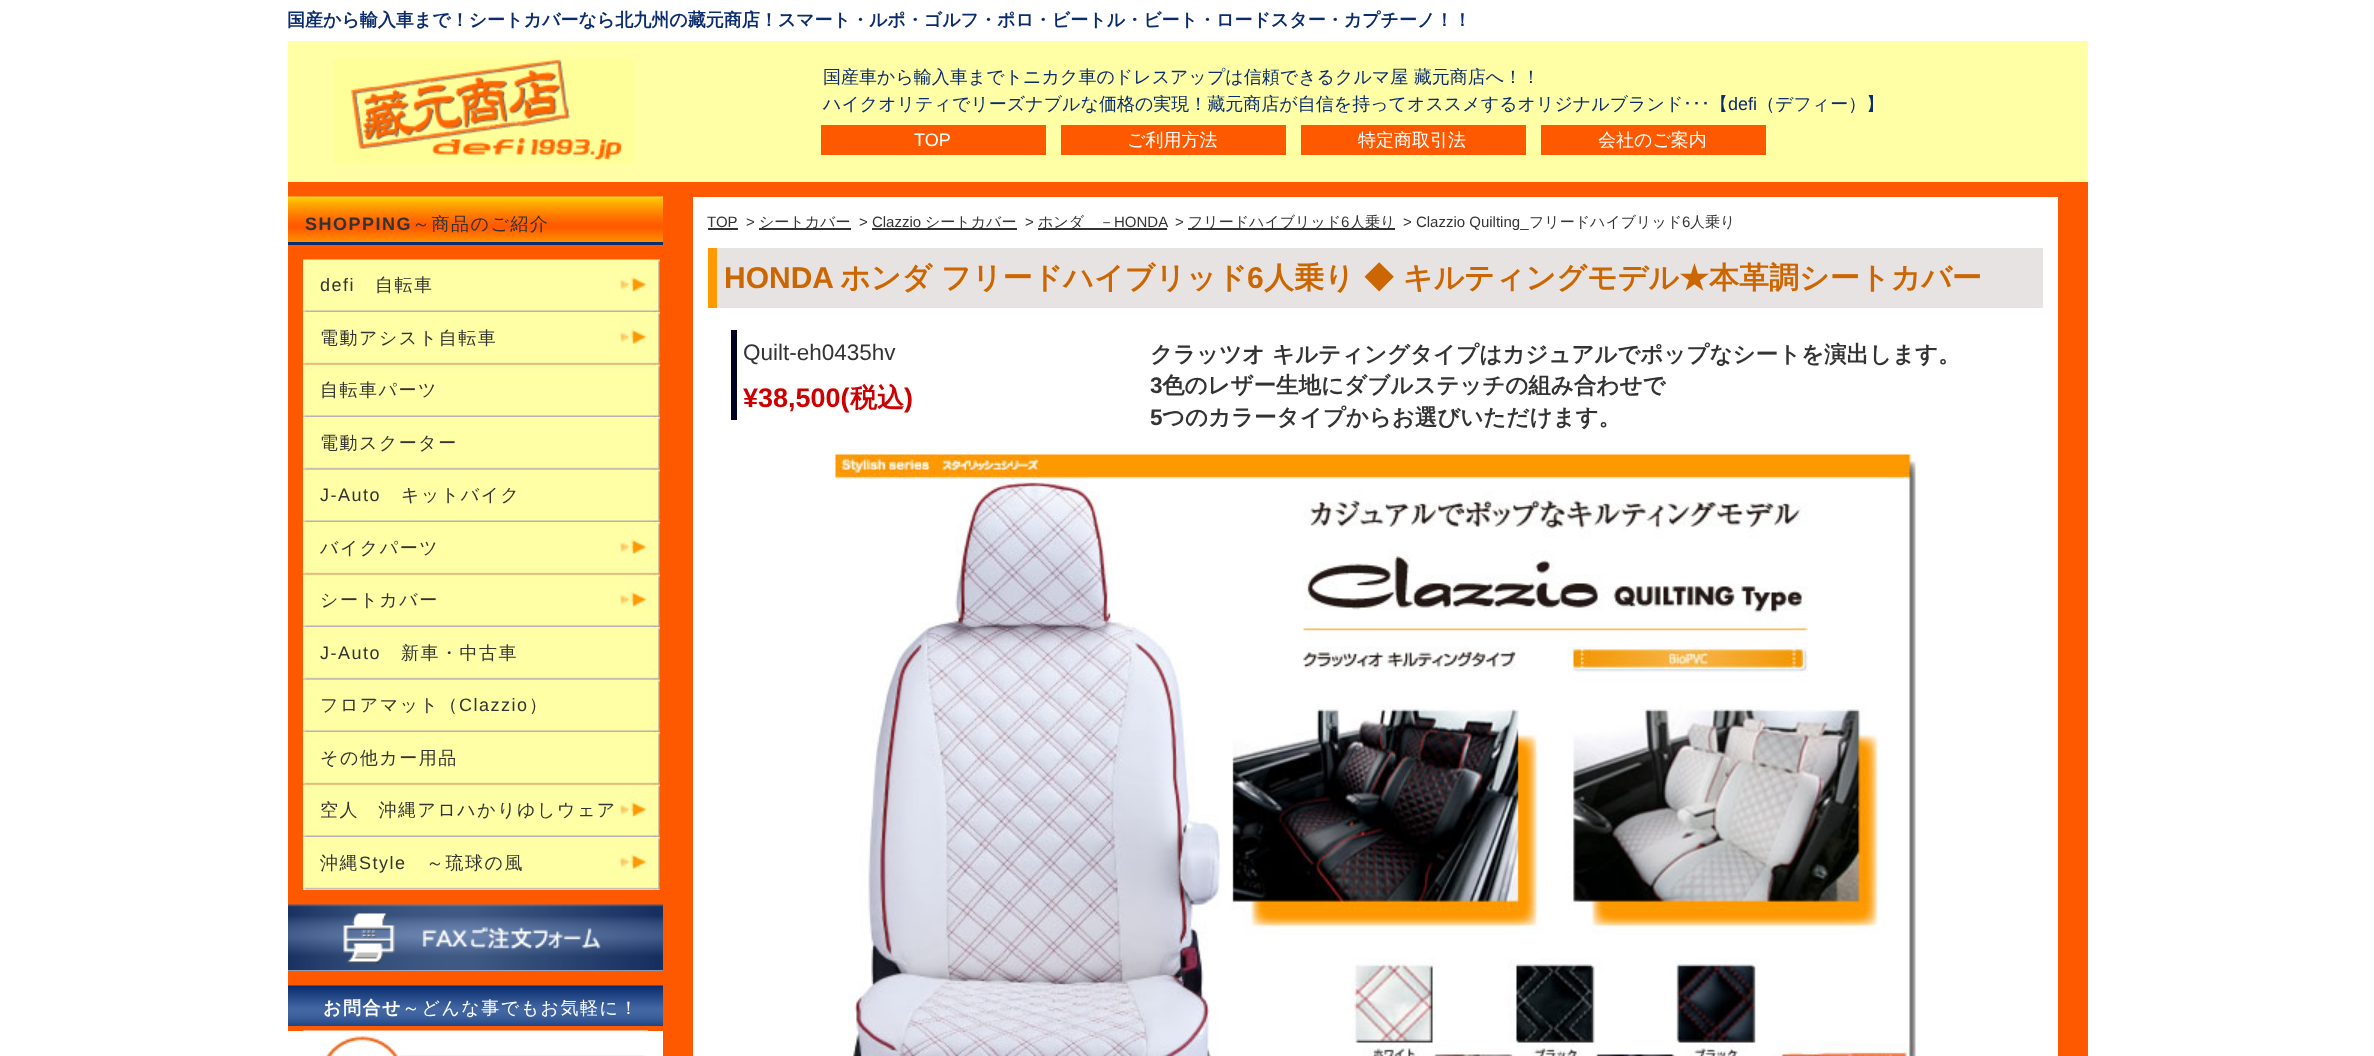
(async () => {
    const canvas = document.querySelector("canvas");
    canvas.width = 2374;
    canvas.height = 1056;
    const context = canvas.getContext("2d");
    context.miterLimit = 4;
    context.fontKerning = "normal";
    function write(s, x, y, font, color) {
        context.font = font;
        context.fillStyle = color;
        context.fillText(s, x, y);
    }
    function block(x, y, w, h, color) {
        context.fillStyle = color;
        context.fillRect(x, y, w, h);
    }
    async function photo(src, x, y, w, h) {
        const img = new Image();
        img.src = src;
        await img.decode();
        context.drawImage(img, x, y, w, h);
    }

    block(0, 0, 2374, 1056, "rgb(255, 255, 255)");
    write("国産から輸入車まで！シートカバーなら北九州の藏元商店！スマート・ルポ・ゴルフ・ポロ・ビートル・ビート・ロードスター・カプチーノ！！", 287, 26, "bold 18px WenQuanYi Zen Hei", "rgb(10, 44, 110)");
    block(288, 41, 1800, 141, "rgb(255, 255, 166)");
    await photo("media/1.png", 333, 58, 300, 106);
    write("国産車から輸入車までトニカク車のドレスアップは信頼できるクルマ屋 藏元商店へ！！", 823, 83, "500 18px WenQuanYi Zen Hei", "rgb(10, 44, 110)");
    write("ハイクオリティでリーズナブルな価格の実現！藏元商店が自信を持ってオススメするオリジナルブランド", 823, 110, "500 18px WenQuanYi Zen Hei", "rgb(10, 44, 110)");
    write("･･･", 1683, 110, "18px IPAPGothic", "rgb(10, 44, 110)");
    write("【", 1710, 110, "500 18px WenQuanYi Zen Hei", "rgb(10, 44, 110)");
    write("defi", 1728, 110, "18px Liberation Sans", "rgb(10, 44, 110)");
    write("（デフィー）】", 1757, 110, "500 18px WenQuanYi Zen Hei", "rgb(10, 44, 110)");
    block(821, 125, 225, 30, "rgb(255, 89, 0)");
    write("TOP", 914, 146, "18px Liberation Sans", "rgb(255, 255, 255)");
    block(1061, 125, 225, 30, "rgb(255, 89, 0)");
    write("ご利用方法", 1127, 146, "500 18px WenQuanYi Zen Hei", "rgb(255, 255, 255)");
    block(1301, 125, 225, 30, "rgb(255, 89, 0)");
    write("特定商取引法", 1358, 146, "500 18px WenQuanYi Zen Hei", "rgb(255, 255, 255)");
    block(1541, 125, 225, 30, "rgb(255, 89, 0)");
    write("会社のご案内", 1598, 146, "500 18px WenQuanYi Zen Hei", "rgb(255, 255, 255)");
    block(288, 182, 375, 849, "rgb(255, 89, 0)");
    await photo("media/2.png", 288, 196, 375, 46);
    block(288, 242, 375, 3, "rgb(10, 44, 110)");
    context.letterSpacing = "1.5px";
    write("SHOPPING", 305, 230, "bold 18px Liberation Sans", "rgb(51, 51, 51)");
    write("～商品のご紹介", 412, 230, "500 18px WenQuanYi Zen Hei", "rgb(51, 51, 51)");
    await photo("media/3.png", 303, 259, 357, 53);
    write("defi", 320, 291, "18px Liberation Sans", "rgb(51, 51, 51)");
    write("自転車", 375, 291, "500 18px WenQuanYi Zen Hei", "rgb(51, 51, 51)");
    await photo("media/4.png", 303, 312, 357, 53);
    write("電動アシスト自転車", 320, 344, "500 18px WenQuanYi Zen Hei", "rgb(51, 51, 51)");
    await photo("media/5.png", 303, 364, 357, 53);
    write("自転車パーツ", 320, 396, "500 18px WenQuanYi Zen Hei", "rgb(51, 51, 51)");
    await photo("media/6.png", 303, 417, 357, 53);
    write("電動スクーター", 320, 449, "500 18px WenQuanYi Zen Hei", "rgb(51, 51, 51)");
    await photo("media/5.png", 303, 469, 357, 53);
    write("J-Auto", 320, 501, "18px Liberation Sans", "rgb(51, 51, 51)");
    write("キットバイク", 401, 501, "500 18px WenQuanYi Zen Hei", "rgb(51, 51, 51)");
    await photo("media/4.png", 303, 522, 357, 53);
    write("バイクパーツ", 320, 554, "500 18px WenQuanYi Zen Hei", "rgb(51, 51, 51)");
    await photo("media/7.png", 303, 574, 357, 53);
    write("シートカバー", 320, 606, "500 18px WenQuanYi Zen Hei", "rgb(51, 51, 51)");
    await photo("media/6.png", 303, 627, 357, 53);
    write("J-Auto", 320, 659, "18px Liberation Sans", "rgb(51, 51, 51)");
    write("新車・中古車", 401, 659, "500 18px WenQuanYi Zen Hei", "rgb(51, 51, 51)");
    await photo("media/5.png", 303, 679, 357, 53);
    write("フロアマット（", 320, 711, "500 18px WenQuanYi Zen Hei", "rgb(51, 51, 51)");
    write("Clazzio", 459, 711, "18px Liberation Sans", "rgb(51, 51, 51)");
    write("）", 529, 711, "500 18px WenQuanYi Zen Hei", "rgb(51, 51, 51)");
    await photo("media/6.png", 303, 732, 357, 53);
    write("その他カー用品", 320, 764, "500 18px WenQuanYi Zen Hei", "rgb(51, 51, 51)");
    await photo("media/7.png", 303, 784, 357, 53);
    write("空人　沖縄アロハかりゆしウェア", 320, 816, "500 18px WenQuanYi Zen Hei", "rgb(51, 51, 51)");
    block(303, 889, 357, 1, "rgb(255, 255, 166)");
    await photo("media/4.png", 303, 837, 357, 53);
    write("沖縄", 320, 869, "500 18px WenQuanYi Zen Hei", "rgb(51, 51, 51)");
    write("Style", 359, 869, "18px Liberation Sans", "rgb(51, 51, 51)");
    write("～琉球の風", 426, 869, "500 18px WenQuanYi Zen Hei", "rgb(51, 51, 51)");
    block(288, 970, 375, 1, "rgb(255, 255, 255)");
    await photo("media/8.png", 288, 904, 375, 67);
    await photo("media/9.png", 288, 985, 375, 41);
    write("お問合せ", 323, 1014, "bold 18px WenQuanYi Zen Hei", "rgb(255, 255, 255)");
    write("～どんな事でもお気軽に！", 402, 1014, "500 18px WenQuanYi Zen Hei", "rgb(255, 255, 255)");
    await photo("media/10.png", 303, 1030, 345, 26);
    block(693, 182, 1365, 15, "rgb(255, 89, 0)");
    block(2058, 182, 30, 874, "rgb(255, 89, 0)");
    block(663, 182, 30, 874, "rgb(255, 89, 0)");
    context.letterSpacing = "0px";
    write("TOP", 707, 227, "15px Liberation Sans", "rgb(51, 51, 51)");
    block(708, 228, 30, 2, "rgb(51, 51, 51)");
    write(">", 746, 227, "15px Liberation Sans", "rgb(51, 51, 51)");
    block(759, 228, 92, 2, "rgb(51, 51, 51)");
    write("シートカバー", 759, 227, "500 15px WenQuanYi Zen Hei", "rgb(51, 51, 51)");
    write("> Clazzio", 859, 227, "15px Liberation Sans", "rgb(51, 51, 51)");
    block(872, 228, 145, 2, "rgb(51, 51, 51)");
    write("シートカバー", 925, 227, "500 15px WenQuanYi Zen Hei", "rgb(51, 51, 51)");
    write(">", 1025, 227, "15px Liberation Sans", "rgb(51, 51, 51)");
    block(1038, 228, 129, 2, "rgb(51, 51, 51)");
    write("ホンダ　－", 1038, 227, "500 15px WenQuanYi Zen Hei", "rgb(51, 51, 51)");
    write("HONDA", 1114, 227, "15px Liberation Sans", "rgb(51, 51, 51)");
    write(">", 1175, 227, "15px Liberation Sans", "rgb(51, 51, 51)");
    block(1188, 228, 207, 2, "rgb(51, 51, 51)");
    write("フリードハイブリッド", 1188, 227, "500 15px WenQuanYi Zen Hei", "rgb(51, 51, 51)");
    write("6", 1341, 227, "15px Liberation Sans", "rgb(51, 51, 51)");
    write("人乗り", 1350, 227, "500 15px WenQuanYi Zen Hei", "rgb(51, 51, 51)");
    write("> Clazzio Quilting_", 1403, 227, "15px Liberation Sans", "rgb(51, 51, 51)");
    write("フリードハイブリッド", 1529, 227, "500 15px WenQuanYi Zen Hei", "rgb(51, 51, 51)");
    write("6", 1682, 227, "15px Liberation Sans", "rgb(51, 51, 51)");
    write("人乗り", 1690, 227, "500 15px WenQuanYi Zen Hei", "rgb(51, 51, 51)");
    block(717, 248, 1326, 60, "rgb(232, 227, 227)");
    block(708, 248, 9, 60, "rgb(255, 153, 0)");
    write("HONDA", 724, 288, "bold 30px Liberation Sans", "rgb(204, 102, 0)");
    write("ホンダ フリードハイブリッド", 840, 288, "bold 30px WenQuanYi Zen Hei", "rgb(204, 102, 0)");
    write("6", 1247, 288, "bold 30px Liberation Sans", "rgb(204, 102, 0)");
    write("人乗り ◆ キルティングモデル★本革調シートカバー", 1264, 288, "bold 30px WenQuanYi Zen Hei", "rgb(204, 102, 0)");
    block(731, 330, 6, 90, "rgb(0, 0, 34)");
    write("Quilt-eh0435hv", 743, 360, "22.5px Liberation Sans", "rgb(51, 51, 51)");
    write("¥38,500(", 743, 407, "bold 27px Liberation Sans", "rgb(204, 0, 0)");
    write("税込", 850, 407, "bold 27px WenQuanYi Zen Hei", "rgb(204, 0, 0)");
    write(")", 904, 407, "bold 27px Liberation Sans", "rgb(204, 0, 0)");
    write("クラッツオ キルティングタイプはカジュアルでポップなシートを演出します。", 1150, 362, "bold 22.5px WenQuanYi Zen Hei", "rgb(51, 51, 51)");
    write("3", 1150, 393, "bold 22.5px Liberation Sans", "rgb(51, 51, 51)");
    write("色のレザー生地にダブルステッチの組み合わせで", 1162, 393, "bold 22.5px WenQuanYi Zen Hei", "rgb(51, 51, 51)");
    write("5", 1150, 425, "bold 22.5px Liberation Sans", "rgb(51, 51, 51)");
    write("つのカラータイプからお選びいただけます。", 1162, 425, "bold 22.5px WenQuanYi Zen Hei", "rgb(51, 51, 51)");
    await photo("media/11.png", 835, 454, 1081, 602);
})();
